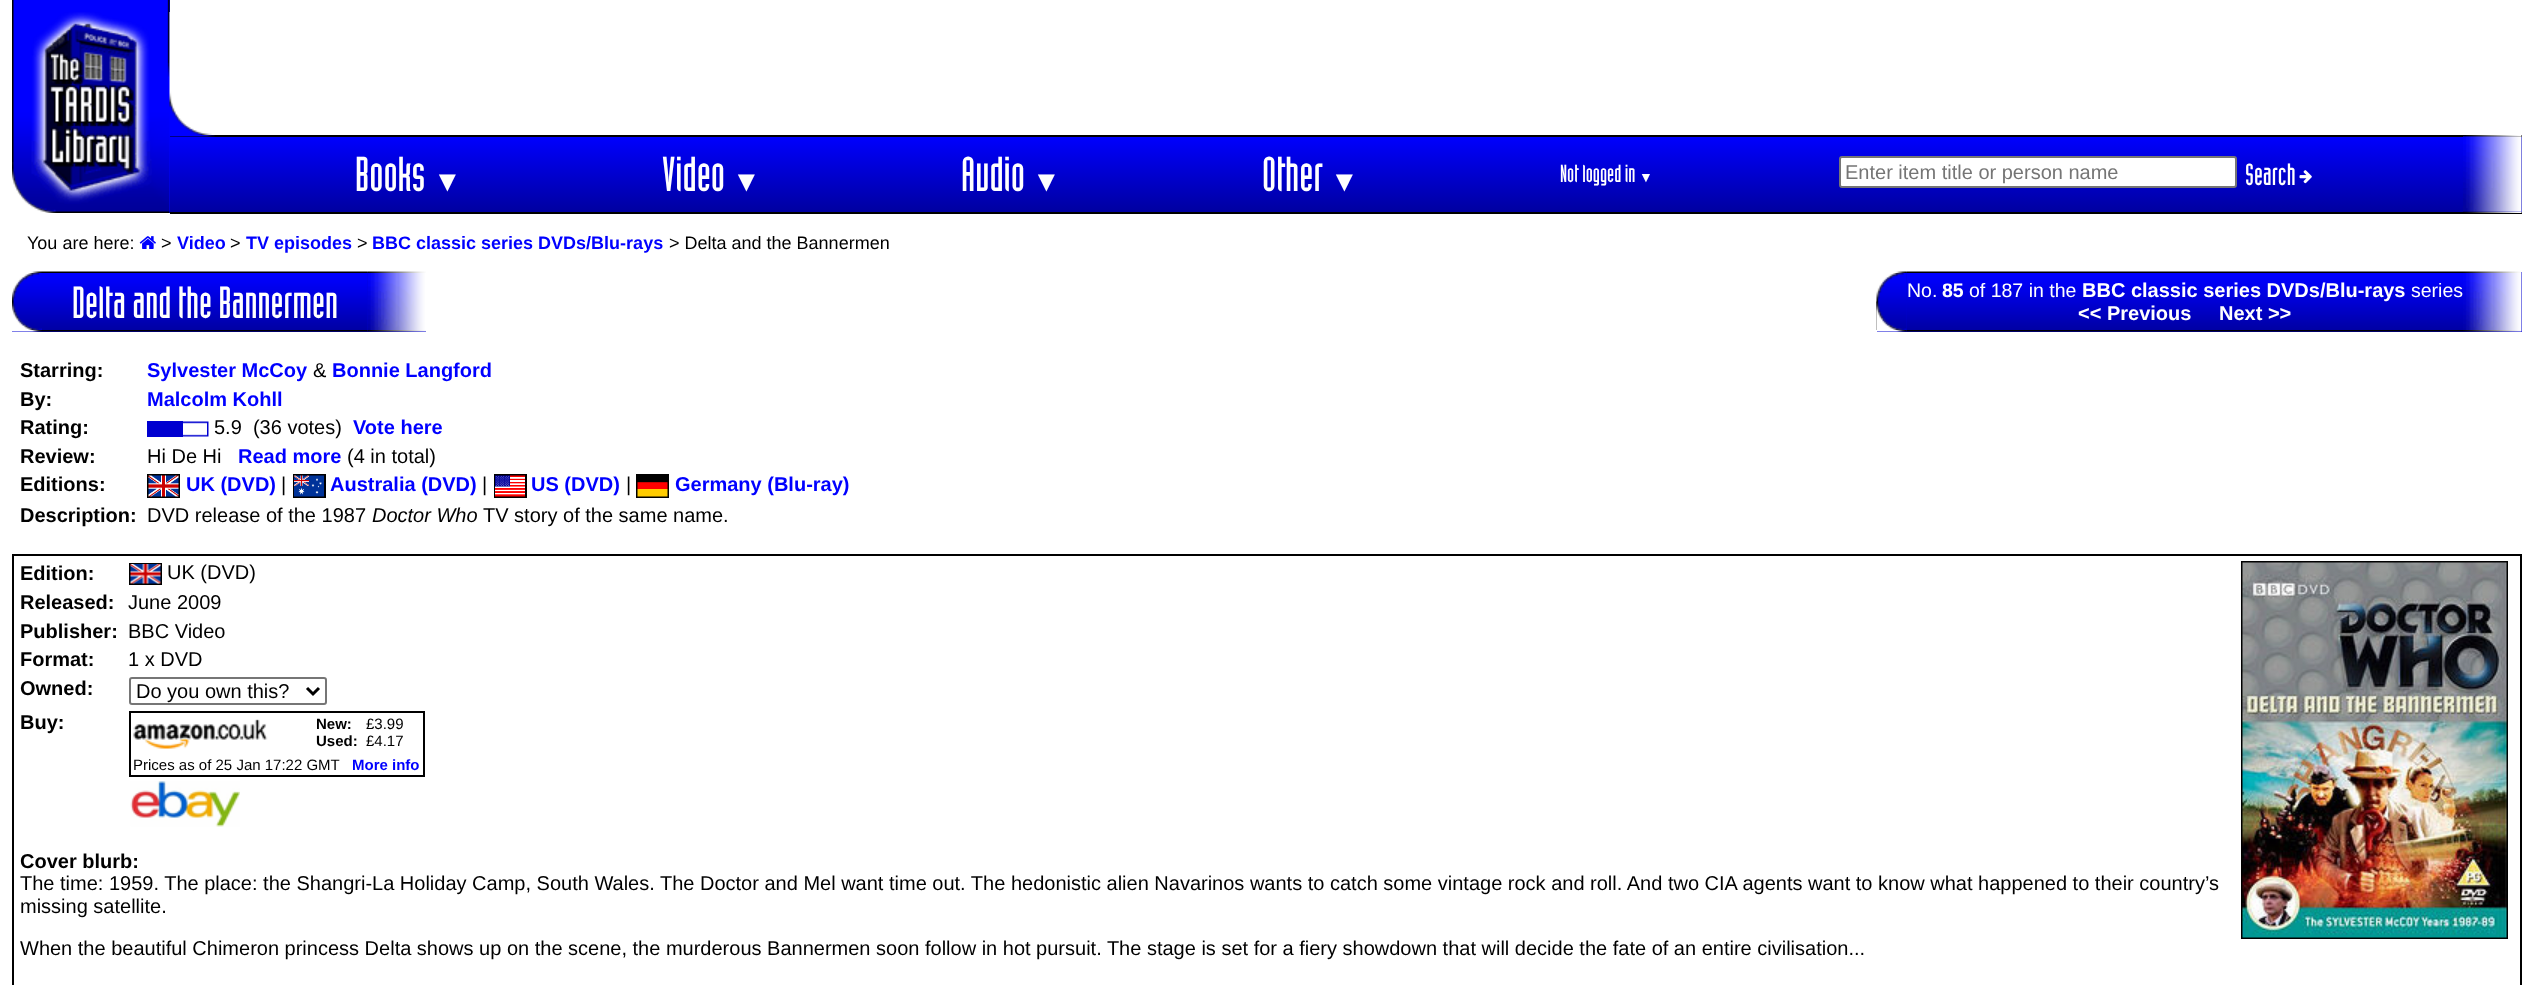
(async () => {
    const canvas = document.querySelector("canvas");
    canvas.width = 2533;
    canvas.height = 985;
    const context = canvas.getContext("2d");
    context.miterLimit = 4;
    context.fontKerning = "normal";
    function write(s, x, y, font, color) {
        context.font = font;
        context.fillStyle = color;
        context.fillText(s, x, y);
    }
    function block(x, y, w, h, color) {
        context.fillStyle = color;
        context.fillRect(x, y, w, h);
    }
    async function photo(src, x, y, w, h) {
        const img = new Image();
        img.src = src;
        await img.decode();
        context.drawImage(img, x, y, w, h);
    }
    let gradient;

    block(0, 0, 2533, 985, "rgb(255, 255, 255)");
    block(169, 0, 1, 213, "rgb(0, 0, 255)");
    await photo("media/1.png", 12, 0, 158, 213);
    await photo("media/2.png", 31, 12, 121, 192);
    await photo("media/3.png", 169, 12, 43, 123);
    block(170, 135, 2352, 2, "rgb(0, 0, 0)");
    await photo("media/4.png", 2466, 135, 56, 2);
    await photo("media/5.png", 170, 135, 45, 2);
    gradient = context.createLinearGradient(1316, 136, 1316, 212);
    gradient.addColorStop(0, "rgb(0, 0, 255)");
    gradient.addColorStop(1, "rgb(0, 0, 160)");
    context.fillStyle = gradient;
    context.fillRect(170, 137, 2293, 75);
    write("Books", 355, 191, "48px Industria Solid", "rgb(255, 255, 255)");
    write("▼", 433, 191, "29px Liberation Sans", "rgb(255, 255, 255)");
    write("Video", 662, 191, "48px Industria Solid", "rgb(255, 255, 255)");
    write("▼", 732, 191, "29px Liberation Sans", "rgb(255, 255, 255)");
    write("Audio", 961, 191, "48px Industria Solid", "rgb(255, 255, 255)");
    write("▼", 1032, 191, "29px Liberation Sans", "rgb(255, 255, 255)");
    write("Other", 1262, 191, "48px Industria Solid", "rgb(255, 255, 255)");
    write("▼", 1330, 191, "29px Liberation Sans", "rgb(255, 255, 255)");
    write("Not logged in", 1560, 182, "24px Industria Solid", "rgb(255, 255, 255)");
    write("▼", 1639, 182, "14px Liberation Sans", "rgb(255, 255, 255)");
    context.beginPath();
    context.roundRect(1840, 157, 396, 30, 2);
    context.fill();
    context.strokeStyle = "rgb(118, 118, 118)";
    context.lineWidth = 2;
    context.stroke();
    write("Enter item title or person name", 1845, 179, "20px Liberation Sans", "rgb(117, 117, 117)");
    write("Search", 2245, 185, "30px Industria Solid", "rgb(255, 255, 255)");
    await photo("media/6.png", 2299, 170, 13, 14);
    block(2463, 137, 59, 75, "rgb(0, 0, 192)");
    block(170, 212, 2352, 2, "rgb(0, 0, 0)");
    await photo("media/8.png", 2463, 211, 59, 2);
    await photo("media/7.png", 2463, 136, 59, 76);
    write("You are here:", 27, 249, "18px Liberation Sans", "rgb(0, 0, 0)");
    await photo("media/9.png", 139, 236, 17, 13);
    write(">", 161, 249, "18px Liberation Sans", "rgb(0, 0, 0)");
    write("Video", 177, 249, "bold 18px Liberation Sans", "rgb(0, 0, 255)");
    write(">", 230, 249, "18px Liberation Sans", "rgb(0, 0, 0)");
    write("TV episodes", 246, 249, "bold 18px Liberation Sans", "rgb(0, 0, 255)");
    write(">", 357, 249, "18px Liberation Sans", "rgb(0, 0, 0)");
    write("BBC classic series DVDs/Blu-rays", 372, 249, "bold 18px Liberation Sans", "rgb(0, 0, 255)");
    write("> Delta and the Bannermen", 669, 249, "18px Liberation Sans", "rgb(0, 0, 0)");
    block(12, 272, 414, 60, "rgb(0, 0, 208)");
    await photo("media/10.png", 12, 271, 30, 2);
    await photo("media/11.png", 42, 271, 326, 2);
    await photo("media/12.png", 367, 271, 59, 2);
    await photo("media/13.png", 12, 273, 30, 56);
    await photo("media/14.png", 12, 301, 30, 29);
    await photo("media/15.png", 42, 273, 326, 57);
    write("Delta and the Bannermen", 72, 318, "44px Industria Solid", "rgb(255, 255, 255)");
    await photo("media/16.png", 367, 273, 59, 57);
    await photo("media/17.png", 12, 330, 30, 2);
    await photo("media/18.png", 42, 330, 326, 2);
    await photo("media/19.png", 367, 330, 59, 2);
    block(1877, 272, 645, 60, "rgb(0, 0, 208)");
    await photo("media/21.png", 1906, 271, 557, 2);
    await photo("media/20.png", 1877, 271, 30, 2);
    await photo("media/22.png", 2463, 271, 59, 2);
    await photo("media/23.png", 1876, 273, 31, 57);
    await photo("media/25.png", 1906, 273, 557, 57);
    await photo("media/24.png", 1876, 301, 31, 29);
    write("No.", 1907, 297, "19.5px Liberation Sans", "rgb(255, 255, 255)");
    write("85", 1942, 297, "bold 19.5px Liberation Sans", "rgb(255, 255, 255)");
    write("of 187 in the", 1969, 297, "19.5px Liberation Sans", "rgb(255, 255, 255)");
    write("BBC classic series DVDs/Blu-rays", 2082, 297, "bold 20px Liberation Sans", "rgb(255, 255, 255)");
    write("series", 2411, 297, "19.5px Liberation Sans", "rgb(255, 255, 255)");
    write("<< Previous", 2078, 320, "bold 20px Liberation Sans", "rgb(255, 255, 255)");
    write("Next >>", 2219, 320, "bold 20px Liberation Sans", "rgb(255, 255, 255)");
    await photo("media/26.png", 2463, 273, 59, 57);
    await photo("media/28.png", 1906, 330, 557, 2);
    await photo("media/27.png", 1877, 330, 30, 2);
    await photo("media/29.png", 2463, 330, 59, 2);
    write("Starring:", 20, 377, "bold 20px Liberation Sans", "rgb(0, 0, 0)");
    write("Sylvester McCoy", 147, 377, "bold 20px Liberation Sans", "rgb(0, 0, 255)");
    write("&", 313, 377, "20px Liberation Sans", "rgb(0, 0, 0)");
    write("Bonnie Langford", 332, 377, "bold 20px Liberation Sans", "rgb(0, 0, 255)");
    write("By:", 20, 406, "bold 20px Liberation Sans", "rgb(0, 0, 0)");
    write("Malcolm Kohll", 147, 406, "bold 20px Liberation Sans", "rgb(0, 0, 255)");
    write("Rating:", 20, 434, "bold 20px Liberation Sans", "rgb(0, 0, 0)");
    block(147, 421, 36, 16, "rgb(0, 0, 208)");
    await photo("media/30.png", 183, 421, 24, 16);
    await photo("media/31.png", 207, 421, 2, 16);
    write("5.9  (36 votes)", 214, 434, "20px Liberation Sans", "rgb(0, 0, 0)");
    write("Vote here", 353, 434, "bold 20px Liberation Sans", "rgb(0, 0, 255)");
    write("Review:", 20, 463, "bold 20px Liberation Sans", "rgb(0, 0, 0)");
    write("Hi De Hi", 147, 463, "20px Liberation Sans", "rgb(0, 0, 0)");
    write("Read more", 238, 463, "bold 20px Liberation Sans", "rgb(0, 0, 255)");
    write("(4 in total)", 347, 463, "20px Liberation Sans", "rgb(0, 0, 0)");
    write("Editions:", 20, 491, "bold 20px Liberation Sans", "rgb(0, 0, 0)");
    context.strokeStyle = "rgb(0, 0, 0)";
    context.strokeRect(148, 475, 31, 22);
    await photo("media/32.png", 148, 475, 31, 22);
    write("UK (DVD)", 186, 491, "bold 20px Liberation Sans", "rgb(0, 0, 255)");
    write("|", 281, 491, "20px Liberation Sans", "rgb(0, 0, 0)");
    context.strokeRect(294, 475, 31, 22);
    await photo("media/33.png", 294, 475, 30, 22);
    write("Australia (DVD)", 330, 491, "bold 20px Liberation Sans", "rgb(0, 0, 255)");
    write("|", 482, 491, "20px Liberation Sans", "rgb(0, 0, 0)");
    context.strokeRect(495, 475, 31, 22);
    await photo("media/34.png", 495, 475, 30, 22);
    write("US (DVD)", 531, 491, "bold 20px Liberation Sans", "rgb(0, 0, 255)");
    write("|", 626, 491, "20px Liberation Sans", "rgb(0, 0, 0)");
    context.strokeRect(637, 475, 31, 22);
    await photo("media/35.png", 637, 476, 31, 21);
    write("Germany (Blu-ray)", 675, 491, "bold 20px Liberation Sans", "rgb(0, 0, 255)");
    write("Description:", 20, 522, "bold 20px Liberation Sans", "rgb(0, 0, 0)");
    write("DVD release of the 1987", 147, 522, "20px Liberation Sans", "rgb(0, 0, 0)");
    write("Doctor Who", 372, 522, "italic 20px Liberation Sans", "rgb(0, 0, 0)");
    write("TV story of the same name.", 483, 522, "20px Liberation Sans", "rgb(0, 0, 0)");
    context.strokeRect(13, 555, 2508, 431);
    write("Edition:", 20, 580, "bold 20px Liberation Sans", "rgb(0, 0, 0)");
    context.strokeRect(130, 564, 31, 20);
    await photo("media/36.png", 130, 564, 31, 20);
    write("UK (DVD)", 167, 579, "20px Liberation Sans", "rgb(0, 0, 0)");
    write("Released:", 20, 609, "bold 20px Liberation Sans", "rgb(0, 0, 0)");
    write("June 2009", 128, 609, "20px Liberation Sans", "rgb(0, 0, 0)");
    write("Publisher:", 20, 638, "bold 20px Liberation Sans", "rgb(0, 0, 0)");
    write("BBC Video", 128, 638, "20px Liberation Sans", "rgb(0, 0, 0)");
    write("Format:", 20, 666, "bold 20px Liberation Sans", "rgb(0, 0, 0)");
    write("1 x DVD", 128, 666, "20px Liberation Sans", "rgb(0, 0, 0)");
    write("Owned:", 20, 695, "bold 20px Liberation Sans", "rgb(0, 0, 0)");
    context.beginPath();
    context.roundRect(130, 678, 196, 26, 2);
    context.strokeStyle = "rgb(118, 118, 118)";
    context.stroke();
    context.beginPath();
    context.moveTo(307, 688);
    context.lineTo(313, 694);
    context.lineTo(319, 688);
    context.strokeStyle = "rgb(0, 0, 0)";
    context.lineWidth = 3;
    context.stroke();
    write("Do you own this?", 136, 698, "20px Liberation Sans", "rgb(0, 0, 0)");
    write("Buy:", 20, 729, "bold 20px Liberation Sans", "rgb(0, 0, 0)");
    context.lineWidth = 2;
    context.strokeRect(130, 712, 294, 64);
    await photo("media/37.png", 133, 719, 135, 30);
    write("New:", 316, 729, "bold 15px Liberation Sans", "rgb(0, 0, 0)");
    write("£3.99", 366, 729, "15px Liberation Sans", "rgb(0, 0, 0)");
    write("Used:", 316, 746, "bold 15px Liberation Sans", "rgb(0, 0, 0)");
    write("£4.17", 366, 746, "15px Liberation Sans", "rgb(0, 0, 0)");
    write("Prices as of 25 Jan 17:22 GMT", 133, 770, "15px Liberation Sans", "rgb(0, 0, 0)");
    write("More info", 352, 770, "bold 15px Liberation Sans", "rgb(0, 0, 255)");
    await photo("media/38.png", 130, 781, 110, 46);
    context.strokeRect(2242, 562, 265, 376);
    await photo("media/39.png", 2242, 562, 265, 376);
    write("Cover blurb:", 20, 868, "bold 20px Liberation Sans", "rgb(0, 0, 0)");
    write("The time: 1959. The place: the Shangri-La Holiday Camp, South Wales. The Doctor and Mel want time out. The hedonistic alien Navarinos wants to catch some vintage rock and roll. And two CIA agents want to know what happened to their country’s", 20, 890, "20px Liberation Sans", "rgb(0, 0, 0)");
    write("missing satellite.", 20, 913, "20px Liberation Sans", "rgb(0, 0, 0)");
    write("When the beautiful Chimeron princess Delta shows up on the scene, the murderous Bannermen soon follow in hot pursuit. The stage is set for a fiery showdown that will decide the fate of an entire civilisation...", 20, 955, "20px Liberation Sans", "rgb(0, 0, 0)");
})();
